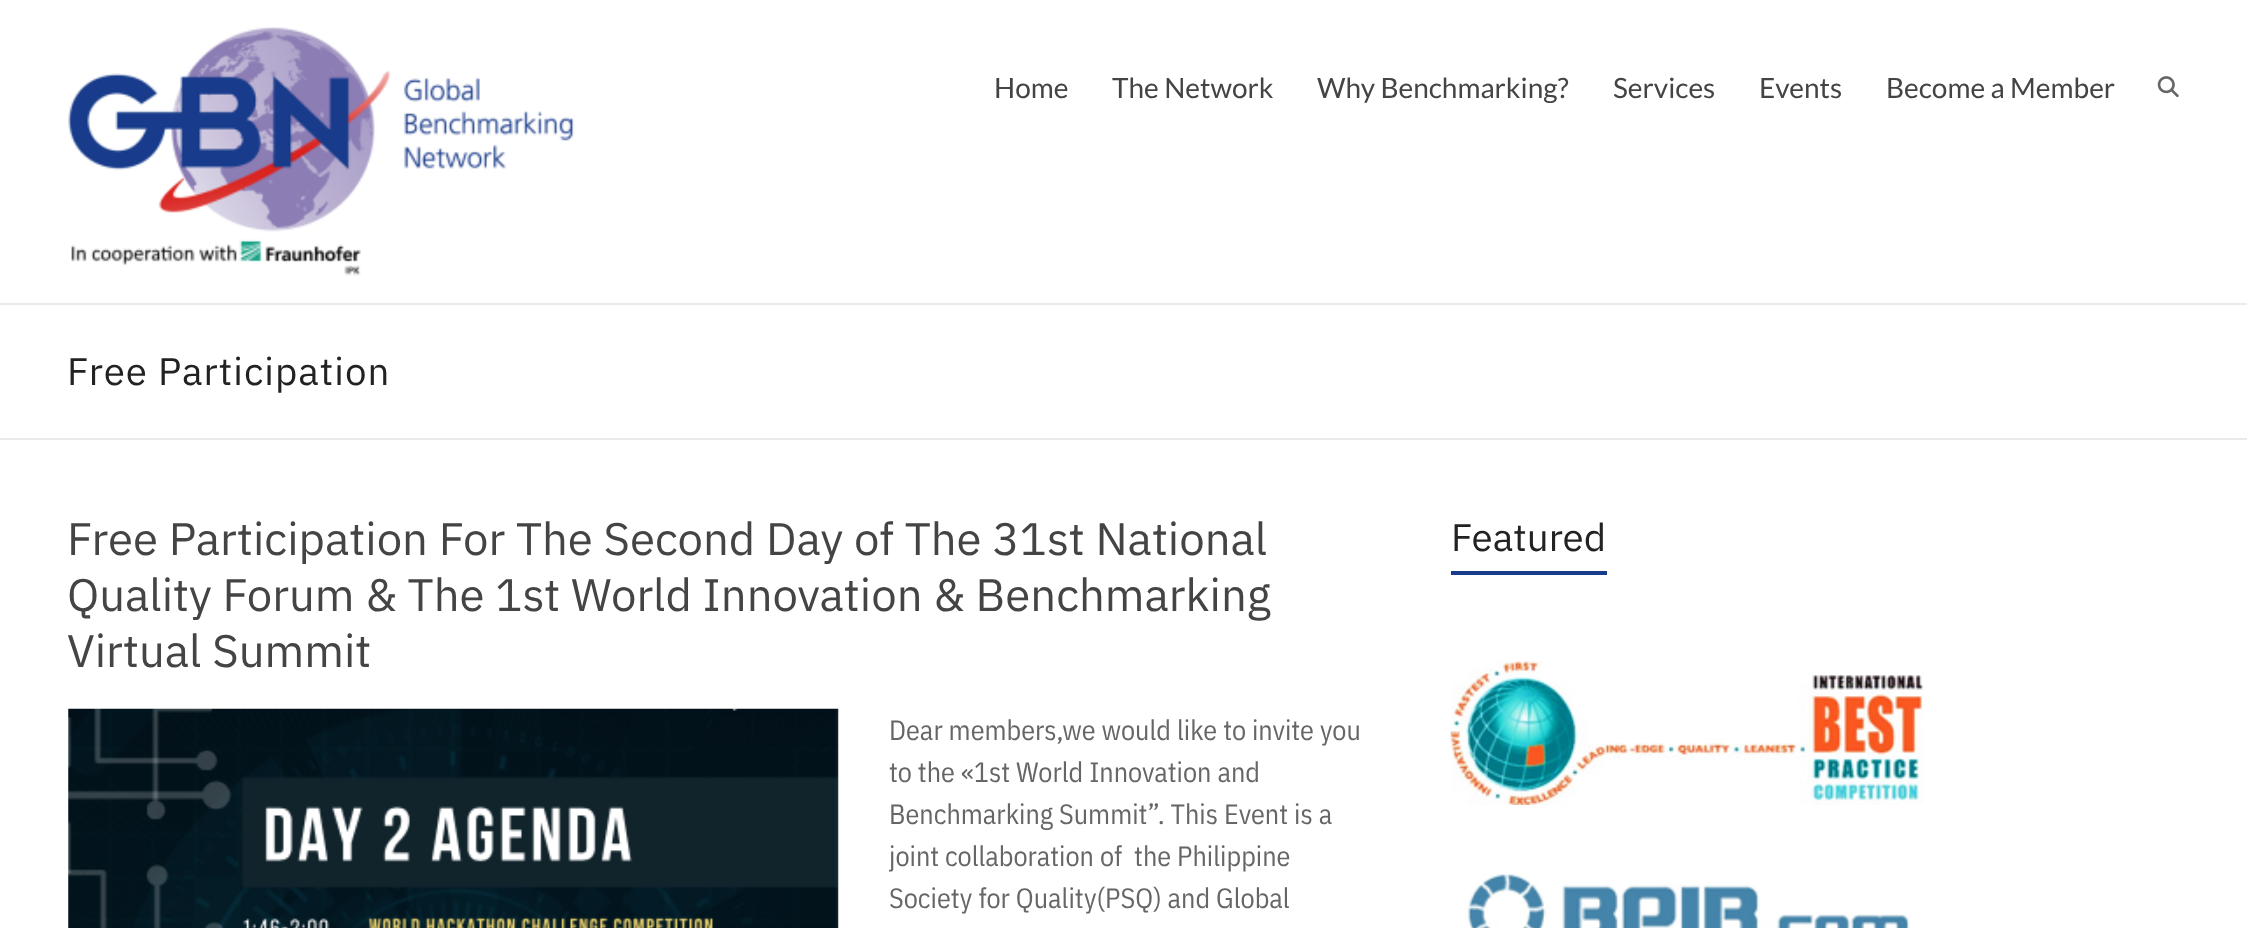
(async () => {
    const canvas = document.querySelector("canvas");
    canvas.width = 2247;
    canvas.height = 928;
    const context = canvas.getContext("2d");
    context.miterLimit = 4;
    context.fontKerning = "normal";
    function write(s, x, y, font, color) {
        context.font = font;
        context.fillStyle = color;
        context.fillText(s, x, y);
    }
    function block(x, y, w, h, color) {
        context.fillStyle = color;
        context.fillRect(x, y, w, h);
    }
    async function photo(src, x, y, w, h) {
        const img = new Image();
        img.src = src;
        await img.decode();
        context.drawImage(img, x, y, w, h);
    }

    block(0, 0, 2247, 928, "rgb(255, 255, 255)");
    block(0, 303, 2247, 2, "rgb(234, 234, 234)");
    await photo("media/1.png", 68, 27, 507, 249);
    write("Home", 994, 98, "28px Lato", "rgb(68, 68, 68)");
    write("The Network", 1112, 98, "28px Lato", "rgb(68, 68, 68)");
    write("Why Benchmarking?", 1317, 98, "28px Lato", "rgb(68, 68, 68)");
    write("Services", 1613, 98, "28px Lato", "rgb(68, 68, 68)");
    write("Events", 1759, 98, "28px Lato", "rgb(68, 68, 68)");
    write("Become a Member", 1886, 98, "28px Lato", "rgb(68, 68, 68)");
    await photo("media/2.png", 2157, 76, 22, 22);
    block(0, 438, 2247, 2, "rgb(234, 234, 234)");
    context.letterSpacing = "1px";
    write("Free Participation", 67, 385, "38.5px IBM Plex Sans", "rgb(34, 34, 34)");
    context.letterSpacing = "0px";
    write("Free Participation For The Second Day of The 31st National", 67, 555, "45.5px IBM Plex Sans", "rgb(68, 68, 68)");
    write("Quality Forum & The 1st World Innovation & Benchmarking", 67, 611, "45.5px IBM Plex Sans", "rgb(68, 68, 68)");
    write("Virtual Summit", 67, 667, "45.5px IBM Plex Sans", "rgb(68, 68, 68)");
    await photo("media/3.png", 68, 708, 771, 220);
    write("Dear members,we would like to invite you", 889, 740, "28px IBM Plex Sans Condensed", "rgb(102, 102, 102)");
    write("to the «1st World Innovation and", 889, 782, "28px IBM Plex Sans Condensed", "rgb(102, 102, 102)");
    write("Benchmarking Summit”. This Event is a", 889, 824, "28px IBM Plex Sans Condensed", "rgb(102, 102, 102)");
    write("joint collaboration of  the Philippine", 889, 866, "28px IBM Plex Sans Condensed", "rgb(102, 102, 102)");
    write("Society for Quality(PSQ) and Global", 889, 908, "28px IBM Plex Sans Condensed", "rgb(102, 102, 102)");
    write("Featured", 1451, 551, "38.5px IBM Plex Sans", "rgb(34, 34, 34)");
    block(1451, 571, 156, 4, "rgb(24, 60, 139)");
    await photo("media/4.png", 1450, 661, 474, 144);
    await photo("media/5.png", 1467, 874, 443, 54);
})();
